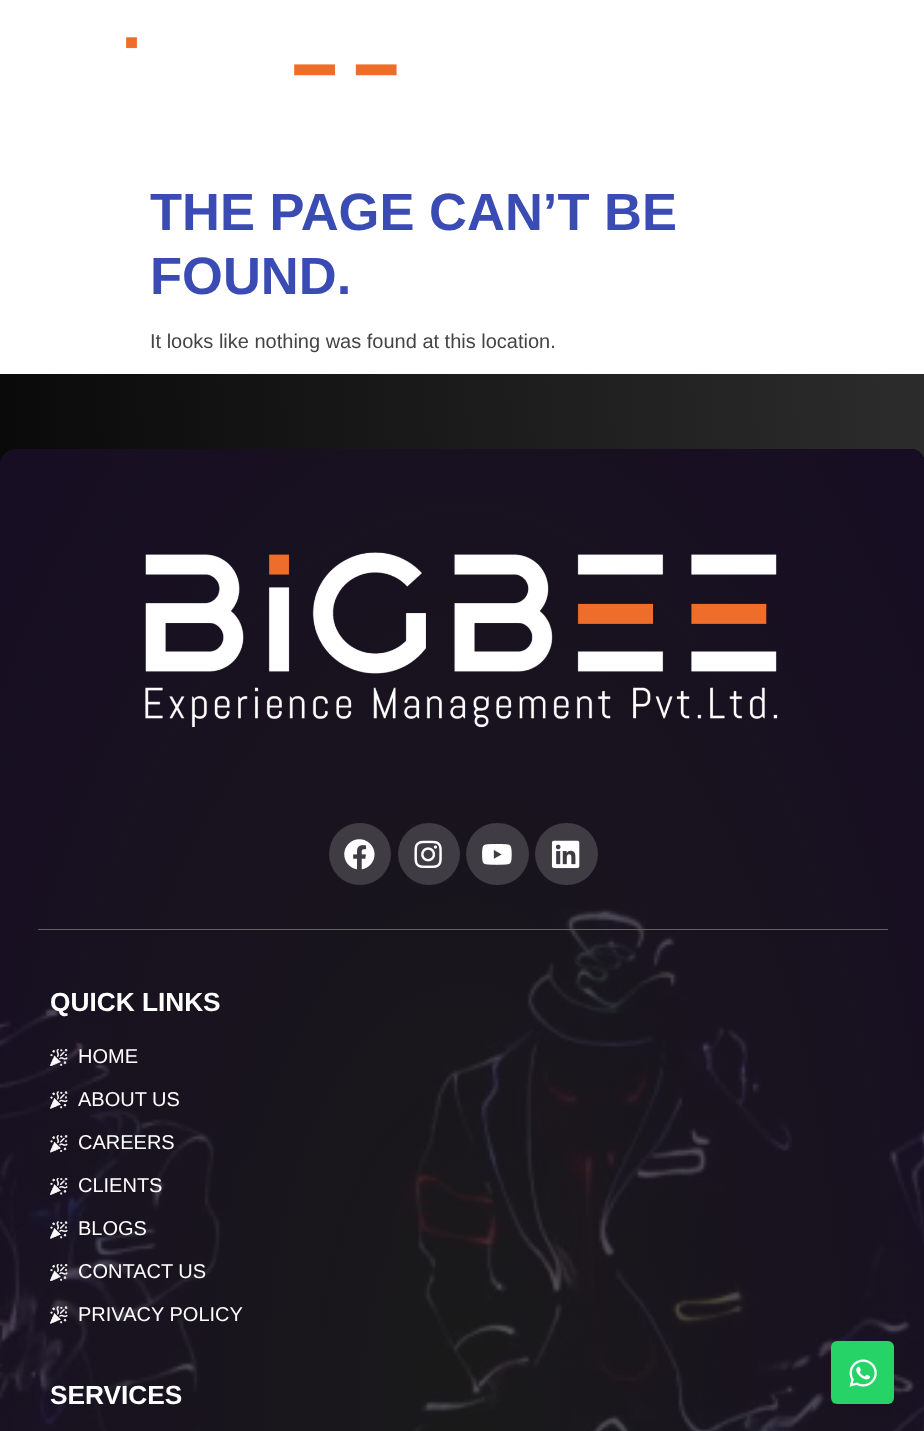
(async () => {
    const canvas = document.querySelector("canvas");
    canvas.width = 924;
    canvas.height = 1431;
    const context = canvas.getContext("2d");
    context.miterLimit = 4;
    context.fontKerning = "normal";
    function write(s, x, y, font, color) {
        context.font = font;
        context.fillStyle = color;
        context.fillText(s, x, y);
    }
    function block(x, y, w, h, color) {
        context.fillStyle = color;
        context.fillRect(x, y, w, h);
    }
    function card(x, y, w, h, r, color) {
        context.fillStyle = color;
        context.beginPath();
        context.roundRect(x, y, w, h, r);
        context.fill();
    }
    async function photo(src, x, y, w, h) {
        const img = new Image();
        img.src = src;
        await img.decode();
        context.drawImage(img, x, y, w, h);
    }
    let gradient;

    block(0, 0, 924, 1431, "rgb(255, 255, 255)");
    await photo("media/1.png", 126, 37, 271, 39);
    write("THE PAGE CAN’T BE", 150, 230, "bold 52.5px Liberation Sans", "rgb(58, 76, 180)");
    write("FOUND.", 150, 294, "bold 52.5px Liberation Sans", "rgb(58, 76, 180)");
    write("It looks like nothing was found at this location.", 150, 348, "20px Liberation Sans", "rgb(68, 68, 68)");
    gradient = context.createLinearGradient(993, 1347, -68, 1421);
    gradient.addColorStop(0, "rgb(44, 44, 44)");
    gradient.addColorStop(1, "rgb(6, 5, 5)");
    context.fillStyle = gradient;
    context.fillRect(0, 374, 924, 90);
    await photo("media/2.png", 0, 449, 924, 982);
    gradient = context.createRadialGradient(463, 684.15, 0, 463, 684.15, 654);
    gradient.addColorStop(0, "rgba(32, 32, 32, 0.78)");
    gradient.addColorStop(1, "rgba(30, 17, 46, 0.78)");
    context.fillStyle = gradient;
    context.beginPath();
    context.roundRect(0, 449, 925, 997, 15);
    context.save();
    context.clip();
    context.scale(1, 1323 / 654);
    context.fillRect(0, 0, 924, 708);
    context.restore();
    await photo("media/3.png", 145, 552, 633, 176);
    context.fillStyle = "rgb(63, 60, 68)";
    context.beginPath();
    context.arc(360, 854, 31, 0, Math.PI * 2);
    context.fill();
    await photo("media/4.png", 344, 839, 31, 31);
    context.beginPath();
    context.arc(429, 854, 31, 0, Math.PI * 2);
    context.fill();
    await photo("media/5.png", 414, 840, 28, 29);
    card(466, 823, 63, 62, 31, "rgb(63, 60, 68)");
    await photo("media/6.png", 482, 843, 30, 22);
    card(535, 823, 63, 62, 31, "rgb(63, 60, 68)");
    await photo("media/7.png", 551, 840, 29, 29);
    block(38, 929, 850, 1, "rgb(98, 98, 98)");
    write("QUICK LINKS", 50, 1011, "bold 26.25px Liberation Sans", "rgb(255, 255, 255)");
    await photo("media/8.png", 50, 1049, 18, 17);
    write("HOME", 78, 1063, "20px Liberation Sans", "rgb(255, 255, 255)");
    await photo("media/9.png", 50, 1091, 18, 18);
    write("ABOUT US", 78, 1106, "20px Liberation Sans", "rgb(255, 255, 255)");
    await photo("media/10.png", 50, 1135, 18, 18);
    write("CAREERS", 78, 1149, "20px Liberation Sans", "rgb(255, 255, 255)");
    await photo("media/11.png", 50, 1178, 18, 17);
    write("CLIENTS", 78, 1192, "20px Liberation Sans", "rgb(255, 255, 255)");
    await photo("media/12.png", 50, 1221, 18, 18);
    write("BLOGS", 78, 1235, "20px Liberation Sans", "rgb(255, 255, 255)");
    await photo("media/13.png", 50, 1264, 18, 17);
    write("CONTACT US", 78, 1278, "20px Liberation Sans", "rgb(255, 255, 255)");
    await photo("media/14.png", 50, 1306, 18, 18);
    write("PRIVACY POLICY", 78, 1321, "20px Liberation Sans", "rgb(255, 255, 255)");
    write("SERVICES", 50, 1404, "bold 26.25px Liberation Sans", "rgb(255, 255, 255)");
    card(831, 1341, 63, 63, 6, "rgb(37, 211, 102)");
    await photo("media/15.png", 849, 1359, 28, 28);
})();
